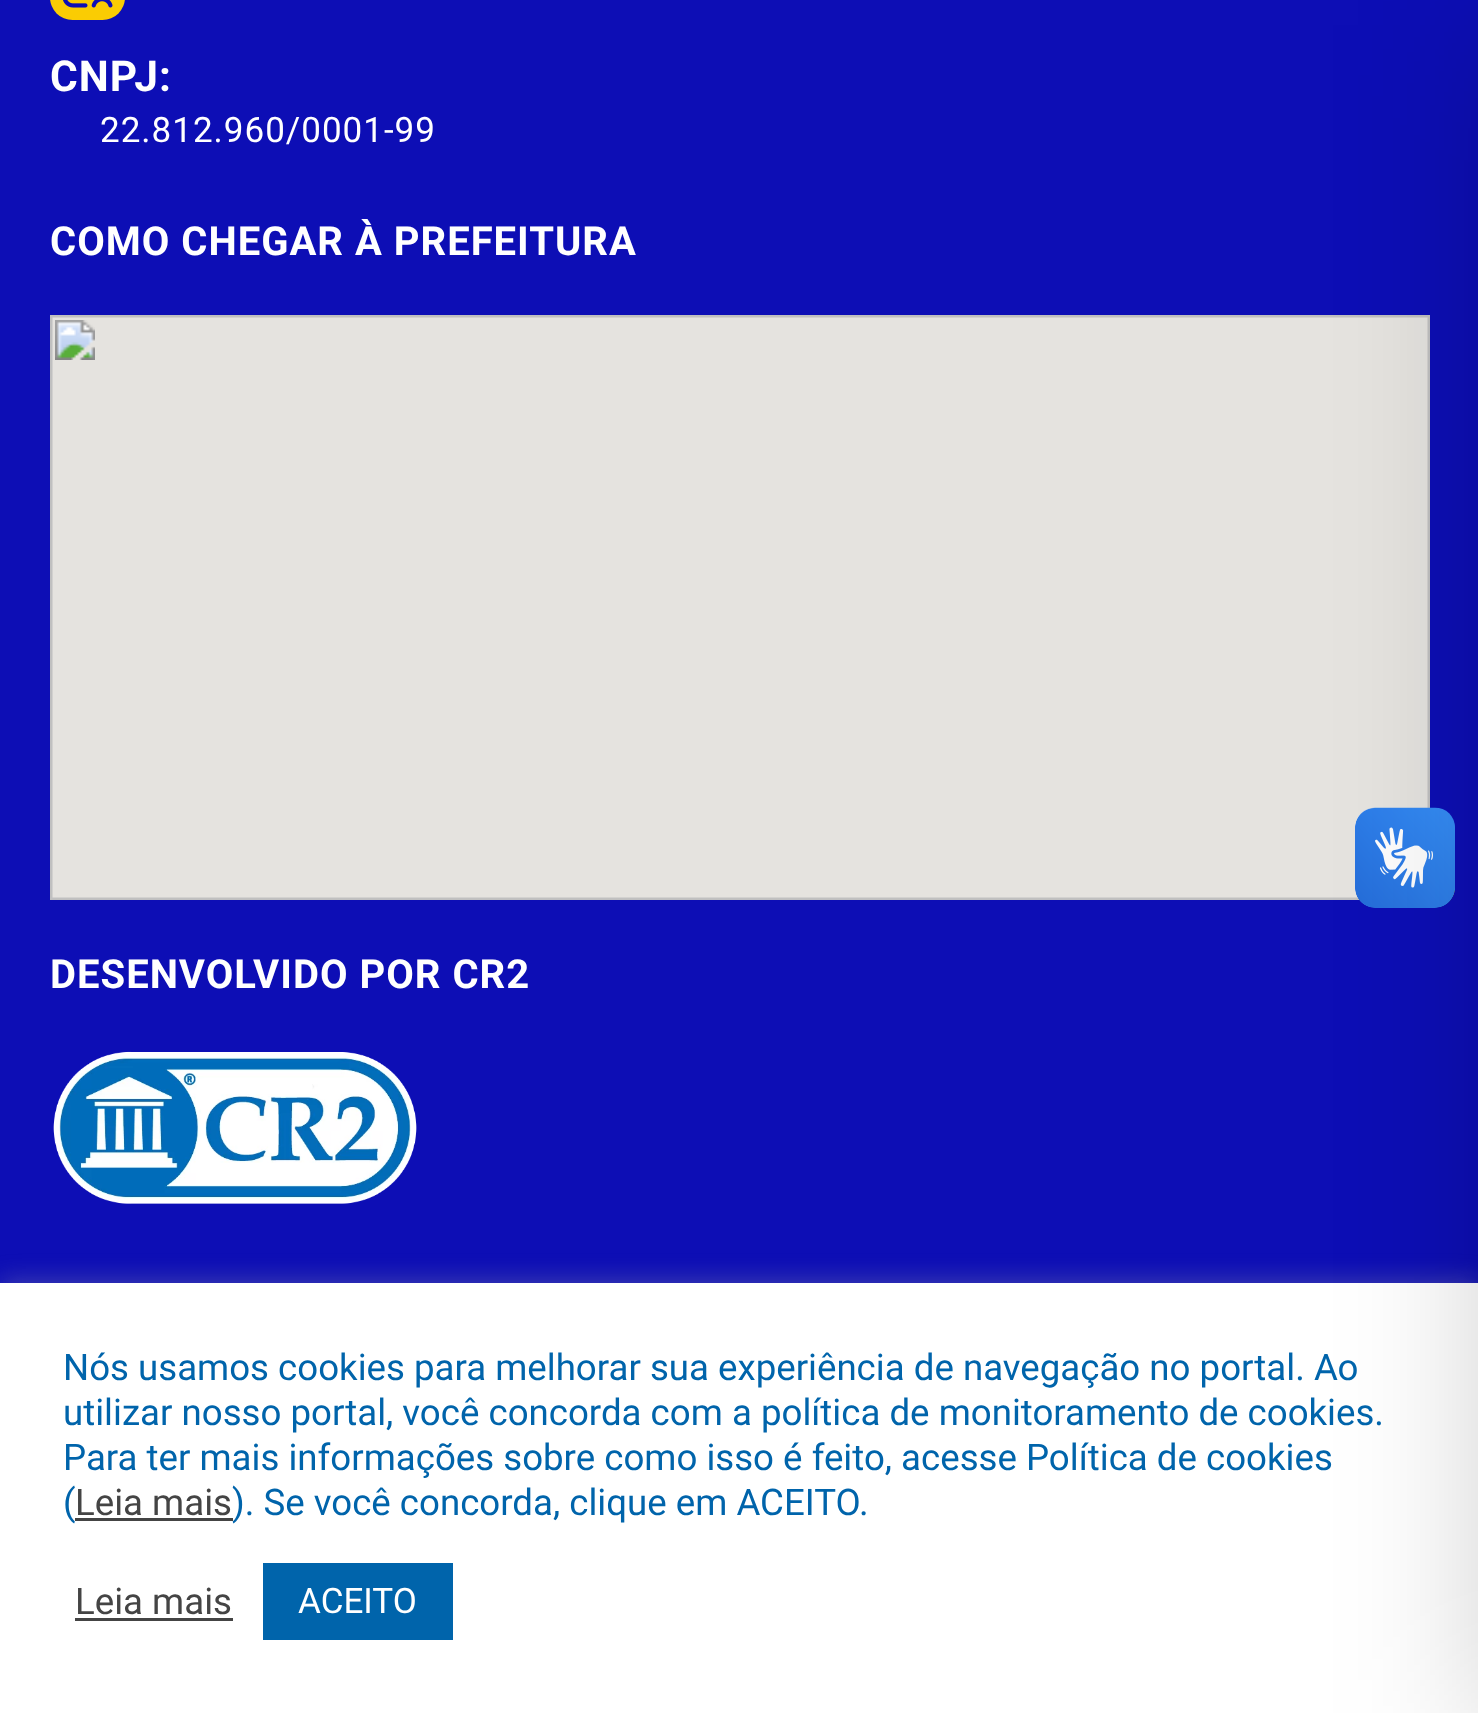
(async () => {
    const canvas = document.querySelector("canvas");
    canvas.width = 1478;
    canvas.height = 1713;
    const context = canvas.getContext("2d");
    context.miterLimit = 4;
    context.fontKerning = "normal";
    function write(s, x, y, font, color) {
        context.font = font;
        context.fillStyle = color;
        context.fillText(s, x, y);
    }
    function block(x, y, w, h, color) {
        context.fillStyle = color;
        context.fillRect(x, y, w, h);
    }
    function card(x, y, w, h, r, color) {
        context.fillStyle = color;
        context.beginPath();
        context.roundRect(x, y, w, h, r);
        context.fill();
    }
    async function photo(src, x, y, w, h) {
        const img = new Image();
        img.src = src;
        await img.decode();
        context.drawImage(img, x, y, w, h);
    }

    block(0, 0, 1478, 1713, "rgb(13, 14, 181)");
    card(50, -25, 75, 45, 25, "rgb(250, 204, 3)");
    await photo("media/1.png", 63, 0, 50, 8);
    context.letterSpacing = "1px";
    write("CNPJ:", 50, 91, "bold 42.5px Roboto", "rgb(255, 255, 255)");
    write("22.812.960/0001-99", 100, 142, "35px Roboto", "rgb(255, 255, 255)");
    write("COMO CHEGAR À PREFEITURA", 50, 255, "bold 40px Roboto", "rgb(255, 255, 255)");
    await photo("media/2.png", 50, 315, 1380, 585);
    write("DESENVOLVIDO POR CR2", 50, 988, "bold 40px Roboto", "rgb(255, 255, 255)");
    await photo("media/3.png", 53, 1051, 364, 153);
    await photo("media/4.png", 1355, 807, 100, 101);
    await photo("media/5.png", 1355, 808, 100, 100);
    context.fillStyle = "rgba(172, 171, 171, 0.3)";
    context.filter = "blur(12.5px)";
    context.beginPath();
    context.rect(0, 1280, 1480, 433);
    context.fill();
    context.filter = "none";
    block(0, 1283, 1478, 430, "rgb(255, 255, 255)");
    context.fillStyle = "rgba(0, 0, 0, 0.2)";
    context.filter = "blur(75px)";
    context.beginPath();
    context.rect(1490, 25, 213, 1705);
    context.fill();
    context.filter = "none";
    context.letterSpacing = "0px";
    write("Nós usamos cookies para melhorar sua experiência de navegação no portal. Ao", 63, 1380, "36.65px Roboto", "rgb(0, 100, 171)");
    write("utilizar nosso portal, você concorda com a política de monitoramento de cookies.", 63, 1425, "36.65px Roboto", "rgb(0, 100, 171)");
    write("Para ter mais informações sobre como isso é feito, acesse Política de cookies", 63, 1470, "36.65px Roboto", "rgb(0, 100, 171)");
    write("(", 63, 1515, "36.65px Roboto", "rgb(0, 100, 171)");
    write("Leia mais", 75, 1515, "36.65px Roboto", "rgb(68, 68, 68)");
    block(75, 1518, 158, 3, "rgb(68, 68, 68)");
    write("). Se você concorda, clique em ACEITO.", 232, 1515, "36.65px Roboto", "rgb(0, 100, 171)");
    write("Leia mais", 75, 1614, "36.65px Roboto", "rgb(68, 68, 68)");
    block(75, 1618, 158, 3, "rgb(68, 68, 68)");
    block(263, 1563, 190, 77, "rgb(0, 100, 171)");
    write("ACEITO", 298, 1613, "35px Roboto", "rgb(255, 255, 255)");
})();
